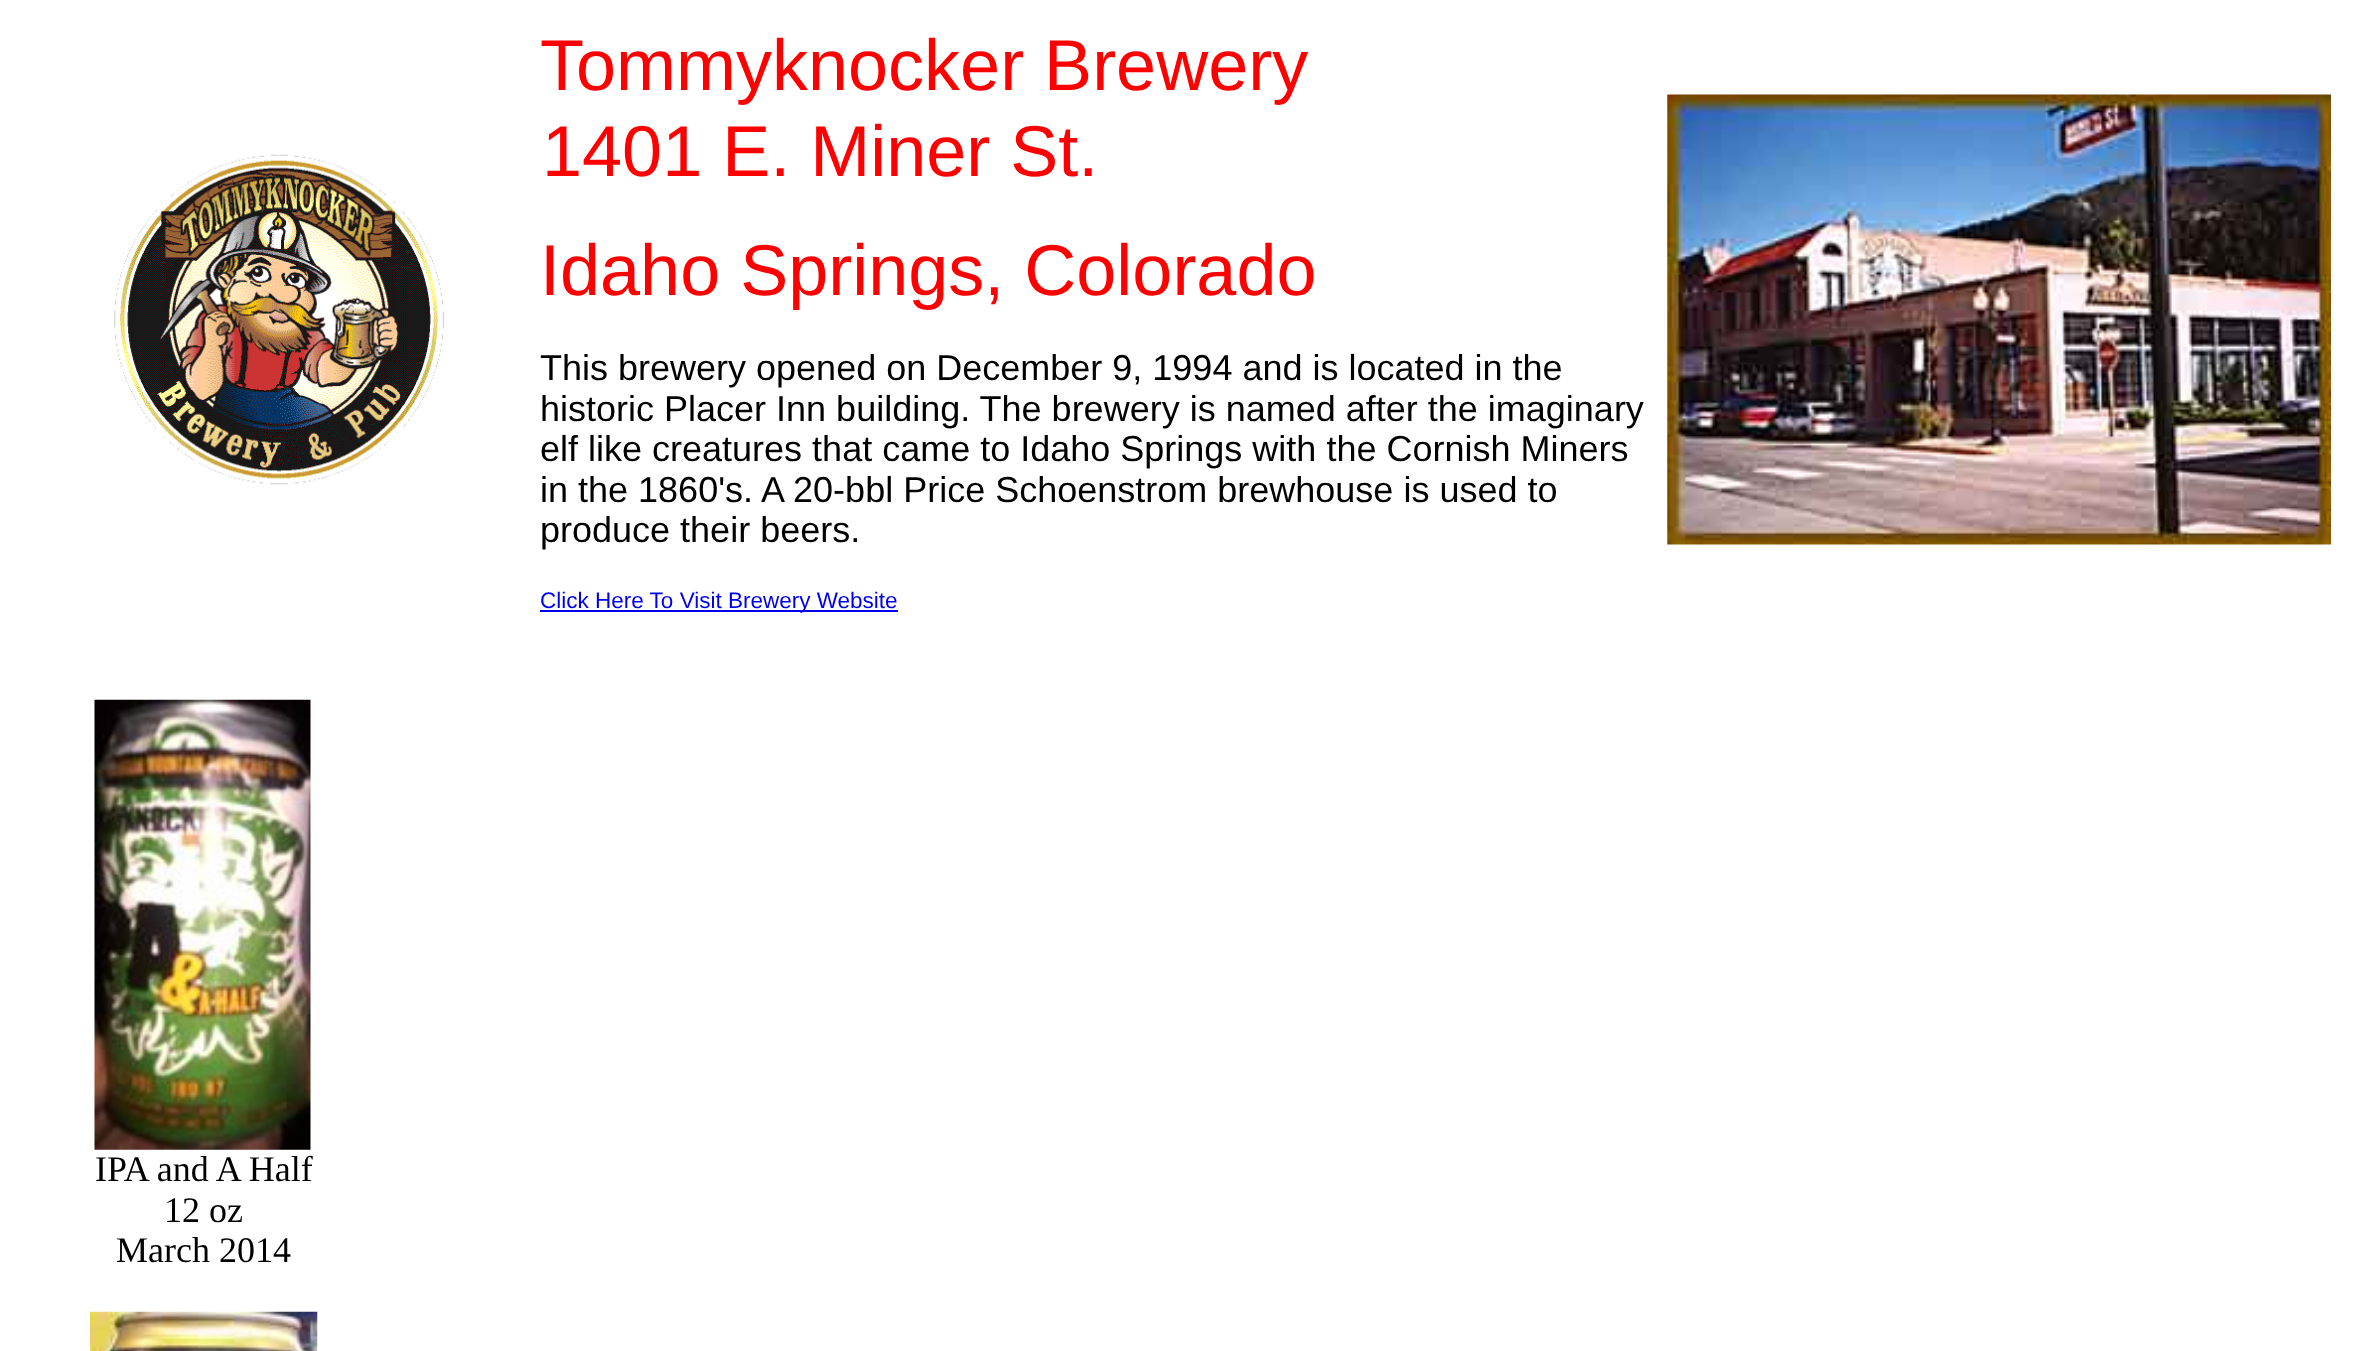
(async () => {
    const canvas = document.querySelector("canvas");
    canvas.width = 2354;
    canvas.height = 1351;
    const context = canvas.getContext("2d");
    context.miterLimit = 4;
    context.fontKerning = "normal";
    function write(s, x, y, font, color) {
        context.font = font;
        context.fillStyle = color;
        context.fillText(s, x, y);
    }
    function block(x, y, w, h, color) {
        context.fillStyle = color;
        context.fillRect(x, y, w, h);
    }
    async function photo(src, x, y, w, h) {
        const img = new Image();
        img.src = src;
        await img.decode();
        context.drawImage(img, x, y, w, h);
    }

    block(0, 0, 2354, 1351, "rgb(255, 255, 255)");
    await photo("media/1.png", 114, 154, 330, 331);
    write("Tommyknocker Brewery", 540, 90, "72px Liberation Sans", "rgb(255, 0, 0)");
    write("1401 E. Miner St.", 542, 176, "72px Liberation Sans", "rgb(255, 0, 0)");
    write("Idaho Springs, Colorado", 540, 295, "72px Liberation Sans", "rgb(255, 0, 0)");
    write("This brewery opened on December 9, 1994 and is located in the", 540, 380, "36px Liberation Sans", "rgb(0, 0, 0)");
    write("historic Placer Inn building. The brewery is named after the imaginary", 540, 421, "36px Liberation Sans", "rgb(0, 0, 0)");
    write("elf like creatures that came to Idaho Springs with the Cornish Miners", 540, 461, "36px Liberation Sans", "rgb(0, 0, 0)");
    write("in the 1860's. A 20-bbl Price Schoenstrom brewhouse is used to", 540, 502, "36px Liberation Sans", "rgb(0, 0, 0)");
    write("produce their beers.", 540, 542, "36px Liberation Sans", "rgb(0, 0, 0)");
    block(540, 610, 358, 2, "rgb(0, 0, 238)");
    write("Click Here To Visit Brewery Website", 540, 608, "22.5px Liberation Sans", "rgb(0, 0, 238)");
    await photo("media/2.png", 1667, 94, 664, 451);
    await photo("media/3.png", 94, 699, 217, 451);
    write("IPA and A Half", 95, 1181, "36px Liberation Serif", "rgb(0, 0, 0)");
    write("12 oz", 164, 1222, "36px Liberation Serif", "rgb(0, 0, 0)");
    write("March 2014", 116, 1262, "36px Liberation Serif", "rgb(0, 0, 0)");
    await photo("media/4.png", 90, 1311, 228, 40);
})();
